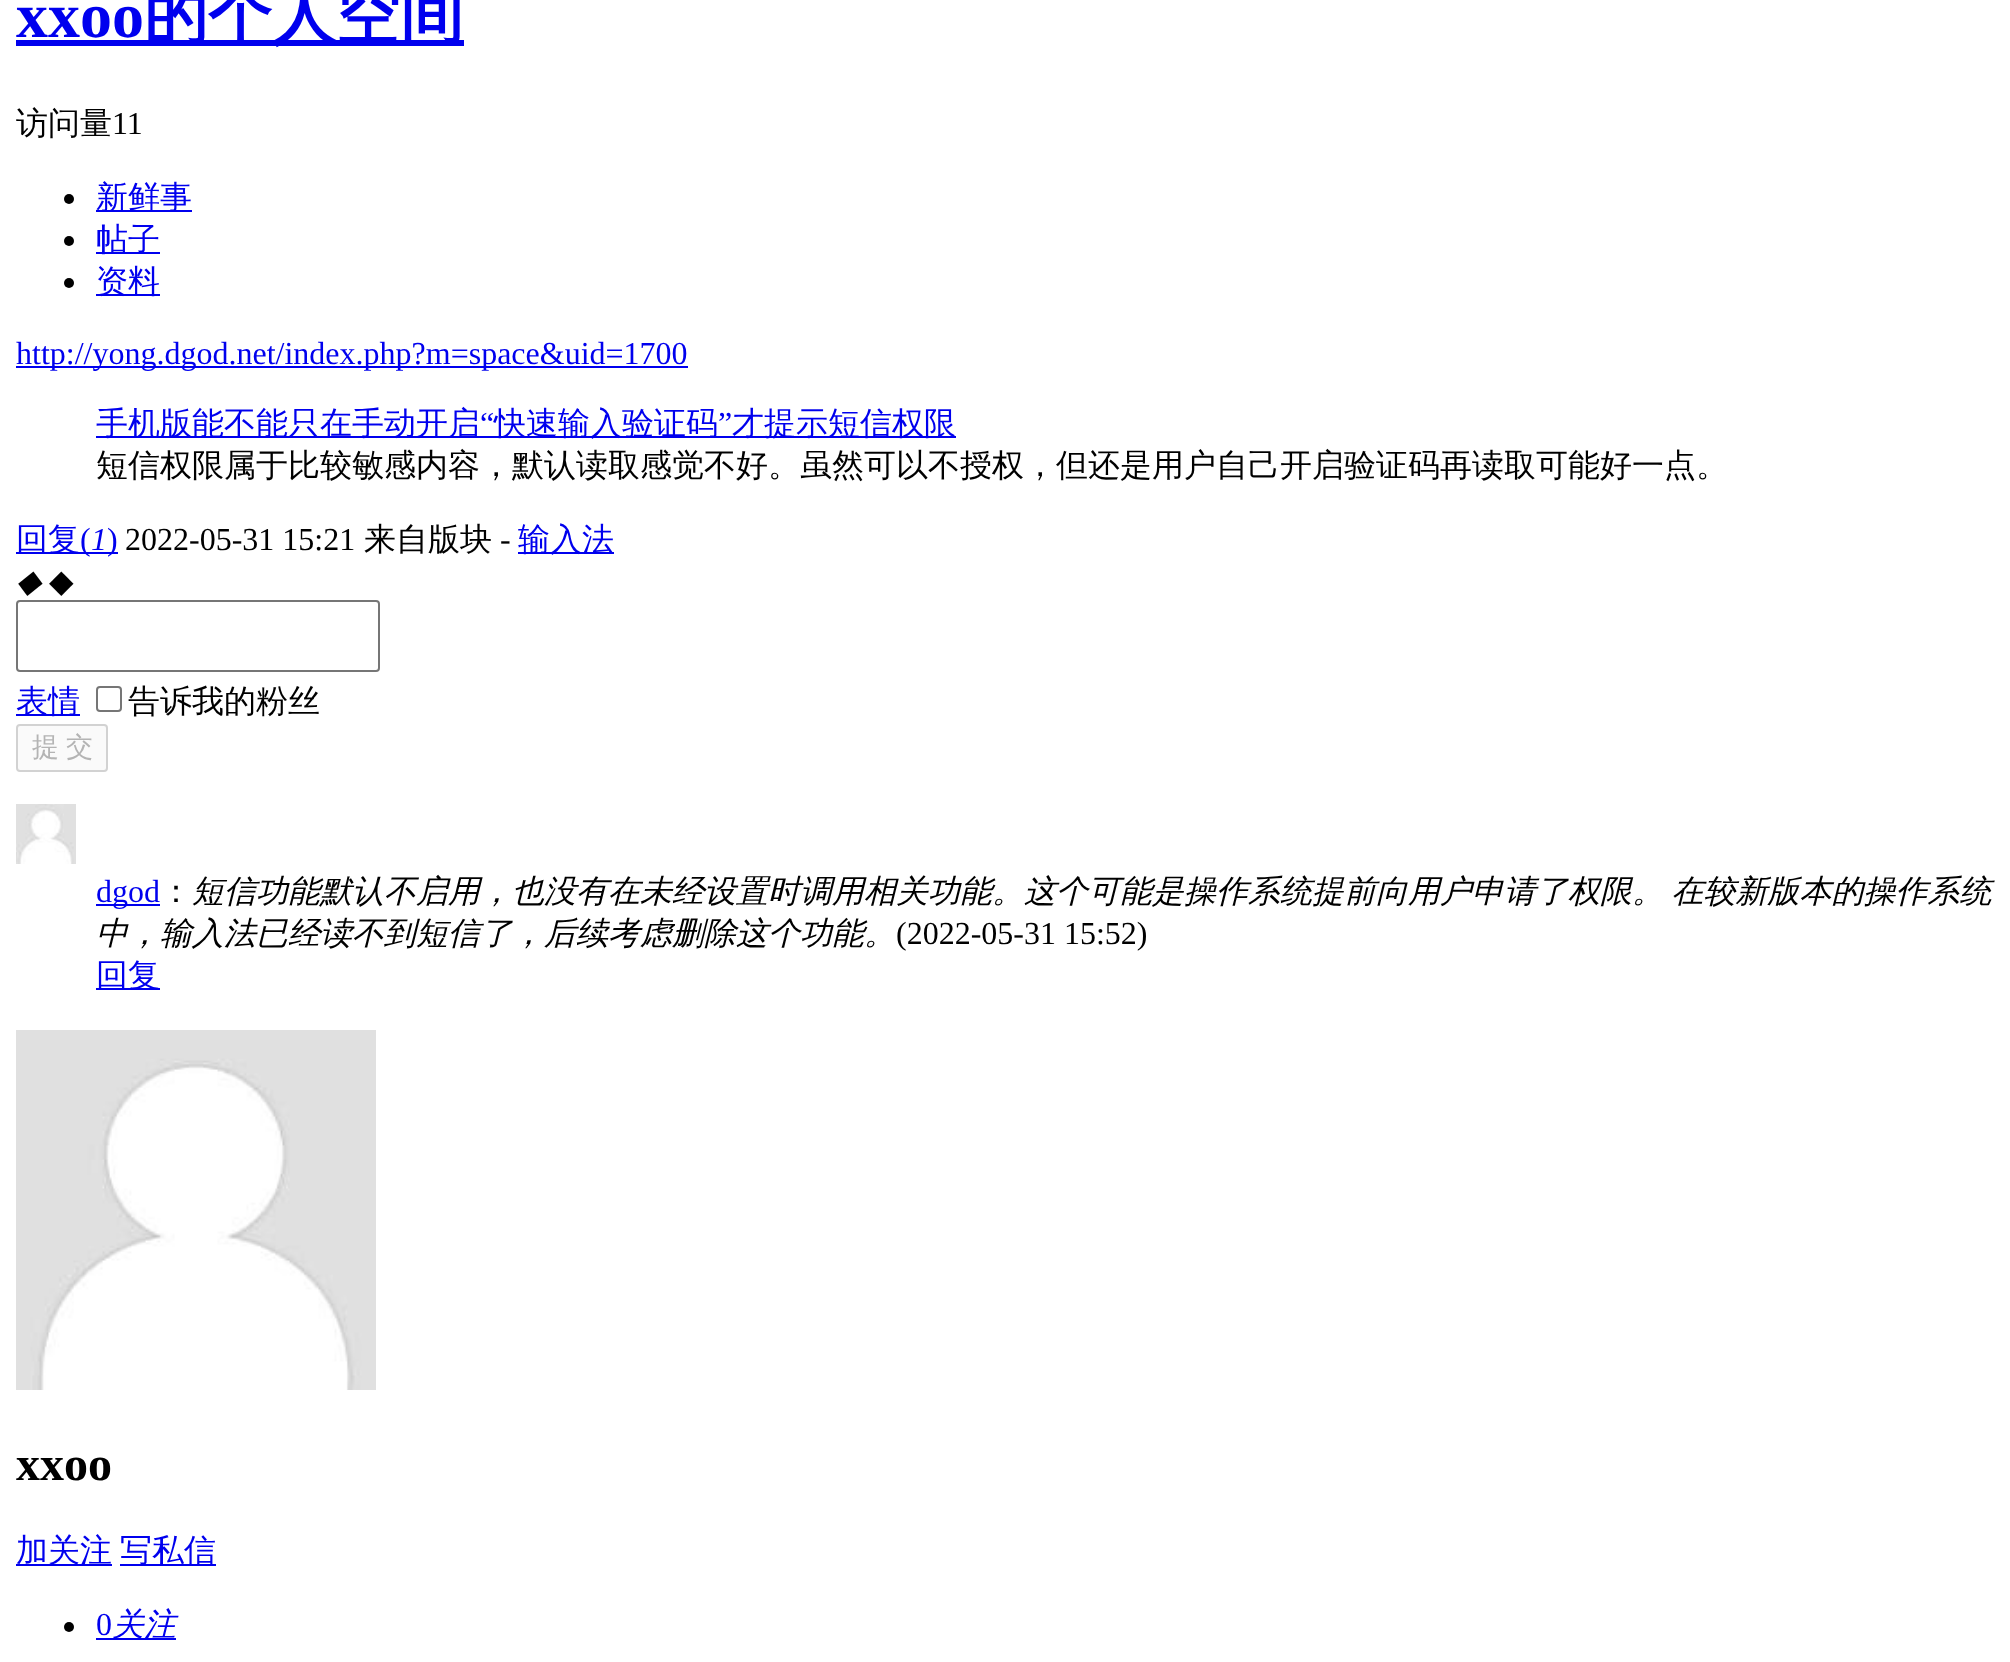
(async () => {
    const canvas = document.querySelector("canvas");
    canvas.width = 2010;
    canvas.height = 1662;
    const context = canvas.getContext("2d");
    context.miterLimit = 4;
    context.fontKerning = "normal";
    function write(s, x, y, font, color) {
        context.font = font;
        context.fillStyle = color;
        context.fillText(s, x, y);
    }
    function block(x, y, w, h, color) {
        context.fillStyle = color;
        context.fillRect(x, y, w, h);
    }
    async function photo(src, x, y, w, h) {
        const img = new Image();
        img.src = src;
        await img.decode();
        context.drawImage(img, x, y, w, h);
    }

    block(0, 0, 2010, 1662, "rgb(255, 255, 255)");
    write("xxoo", 16, 37, "bold 64px Liberation Serif", "rgb(0, 0, 238)");
    block(16, 40, 448, 6, "rgb(0, 0, 238)");
    write("的个人空间", 144, 37, "bold 64px WenQuanYi Zen Hei", "rgb(0, 0, 238)");
    write("访问量", 16, 134, "500 32px WenQuanYi Zen Hei", "rgb(0, 0, 0)");
    write("11", 112, 134, "32px Liberation Serif", "rgb(0, 0, 0)");
    context.beginPath();
    context.arc(69, 199, 5, 0, Math.PI * 2);
    context.fill();
    block(96, 210, 96, 2, "rgb(0, 0, 238)");
    write("新鲜事", 96, 208, "500 32px WenQuanYi Zen Hei", "rgb(0, 0, 238)");
    context.fillStyle = "rgb(0, 0, 0)";
    context.beginPath();
    context.arc(69, 241, 5, 0, Math.PI * 2);
    context.fill();
    block(96, 252, 64, 2, "rgb(0, 0, 238)");
    write("帖子", 96, 250, "500 32px WenQuanYi Zen Hei", "rgb(0, 0, 238)");
    context.fillStyle = "rgb(0, 0, 0)";
    context.beginPath();
    context.arc(69, 283, 5, 0, Math.PI * 2);
    context.fill();
    block(96, 294, 64, 2, "rgb(0, 0, 238)");
    write("资料", 96, 292, "500 32px WenQuanYi Zen Hei", "rgb(0, 0, 238)");
    block(16, 366, 672, 2, "rgb(0, 0, 238)");
    write("http://yong.dgod.net/index.php?m=space&uid=1700", 16, 364, "32px Liberation Serif", "rgb(0, 0, 238)");
    block(96, 436, 860, 2, "rgb(0, 0, 238)");
    write("手机版能不能只在手动开启", 96, 434, "500 32px WenQuanYi Zen Hei", "rgb(0, 0, 238)");
    write("“", 480, 434, "32px Liberation Serif", "rgb(0, 0, 238)");
    write("快速输入验证码", 494, 434, "500 32px WenQuanYi Zen Hei", "rgb(0, 0, 238)");
    write("”", 718, 434, "32px Liberation Serif", "rgb(0, 0, 238)");
    write("才提示短信权限", 732, 434, "500 32px WenQuanYi Zen Hei", "rgb(0, 0, 238)");
    write("短信权限属于比较敏感内容，默认读取感觉不好。虽然可以不授权，但还是用户自己开启验证码再读取可能好一点。", 96, 476, "500 32px WenQuanYi Zen Hei", "rgb(0, 0, 0)");
    block(16, 552, 102, 2, "rgb(0, 0, 238)");
    write("回复", 16, 550, "500 32px WenQuanYi Zen Hei", "rgb(0, 0, 238)");
    write("(", 80, 550, "32px Liberation Serif", "rgb(0, 0, 238)");
    write("1", 91, 550, "italic 32px Liberation Serif", "rgb(0, 0, 238)");
    write(")", 107, 550, "32px Liberation Serif", "rgb(0, 0, 238)");
    write("2022-05-31 15:21", 125, 550, "32px Liberation Serif", "rgb(0, 0, 0)");
    write("来自版块", 364, 550, "500 32px WenQuanYi Zen Hei", "rgb(0, 0, 0)");
    write("-", 500, 550, "32px Liberation Serif", "rgb(0, 0, 0)");
    block(518, 552, 96, 2, "rgb(0, 0, 238)");
    write("输入法", 518, 550, "500 32px WenQuanYi Zen Hei", "rgb(0, 0, 238)");
    write("◆", 16, 592, "italic 32px DejaVu Sans", "rgb(0, 0, 0)");
    write("◆", 49, 592, "32px DejaVu Sans", "rgb(0, 0, 0)");
    context.beginPath();
    context.roundRect(17, 601, 362, 70, 3);
    context.strokeStyle = "rgb(118, 118, 118)";
    context.lineWidth = 2;
    context.stroke();
    block(16, 714, 64, 2, "rgb(0, 0, 238)");
    write("表情", 16, 712, "500 32px WenQuanYi Zen Hei", "rgb(0, 0, 238)");
    context.beginPath();
    context.roundRect(97, 687, 24, 24, 3);
    context.stroke();
    write("告诉我的粉丝", 128, 712, "500 32px WenQuanYi Zen Hei", "rgb(0, 0, 0)");
    context.fillStyle = "rgb(250, 250, 250)";
    context.beginPath();
    context.roundRect(17, 725, 90, 46, 3);
    context.fill();
    context.strokeStyle = "rgb(210, 210, 210)";
    context.stroke();
    context.wordSpacing = "-1px";
    write("提 交", 32, 756, "500 27px WenQuanYi Zen Hei", "rgb(180, 180, 180)");
    await photo("media/1.png", 16, 804, 60, 60);
    block(96, 904, 64, 2, "rgb(0, 0, 238)");
    context.wordSpacing = "0px";
    write("dgod", 96, 902, "32px Liberation Serif", "rgb(0, 0, 238)");
    write("：", 160, 902, "500 32px WenQuanYi Zen Hei", "rgb(0, 0, 0)");
    context.wordSpacing = "-2px";
    write("短信功能默认不启用，也没有在未经设置时调用相关功能。这个可能是操作系统提前向用户申请了权限。 在较新版本的操作系统", 192, 902, "italic 500 32px WenQuanYi Zen Hei", "rgb(0, 0, 0)");
    context.wordSpacing = "0px";
    write("中，输入法已经读不到短信了，后续考虑删除这个功能。", 96, 944, "italic 500 32px WenQuanYi Zen Hei", "rgb(0, 0, 0)");
    write("(2022-05-31 15:52)", 896, 944, "32px Liberation Serif", "rgb(0, 0, 0)");
    block(96, 988, 64, 2, "rgb(0, 0, 238)");
    write("回复", 96, 986, "500 32px WenQuanYi Zen Hei", "rgb(0, 0, 238)");
    await photo("media/2.png", 16, 1030, 360, 360);
    write("xxoo", 16, 1480, "bold 48px Liberation Serif", "rgb(0, 0, 0)");
    block(16, 1564, 96, 2, "rgb(0, 0, 238)");
    write("加关注", 16, 1561, "500 32px WenQuanYi Zen Hei", "rgb(0, 0, 238)");
    block(120, 1564, 96, 2, "rgb(0, 0, 238)");
    write("写私信", 120, 1561, "500 32px WenQuanYi Zen Hei", "rgb(0, 0, 238)");
    context.fillStyle = "rgb(0, 0, 0)";
    context.beginPath();
    context.arc(69, 1627, 5, 0, Math.PI * 2);
    context.fill();
    write("0", 96, 1635, "32px Liberation Serif", "rgb(0, 0, 238)");
    block(96, 1638, 80, 2, "rgb(0, 0, 238)");
    write("关注", 112, 1635, "italic 500 32px WenQuanYi Zen Hei", "rgb(0, 0, 238)");
})();
